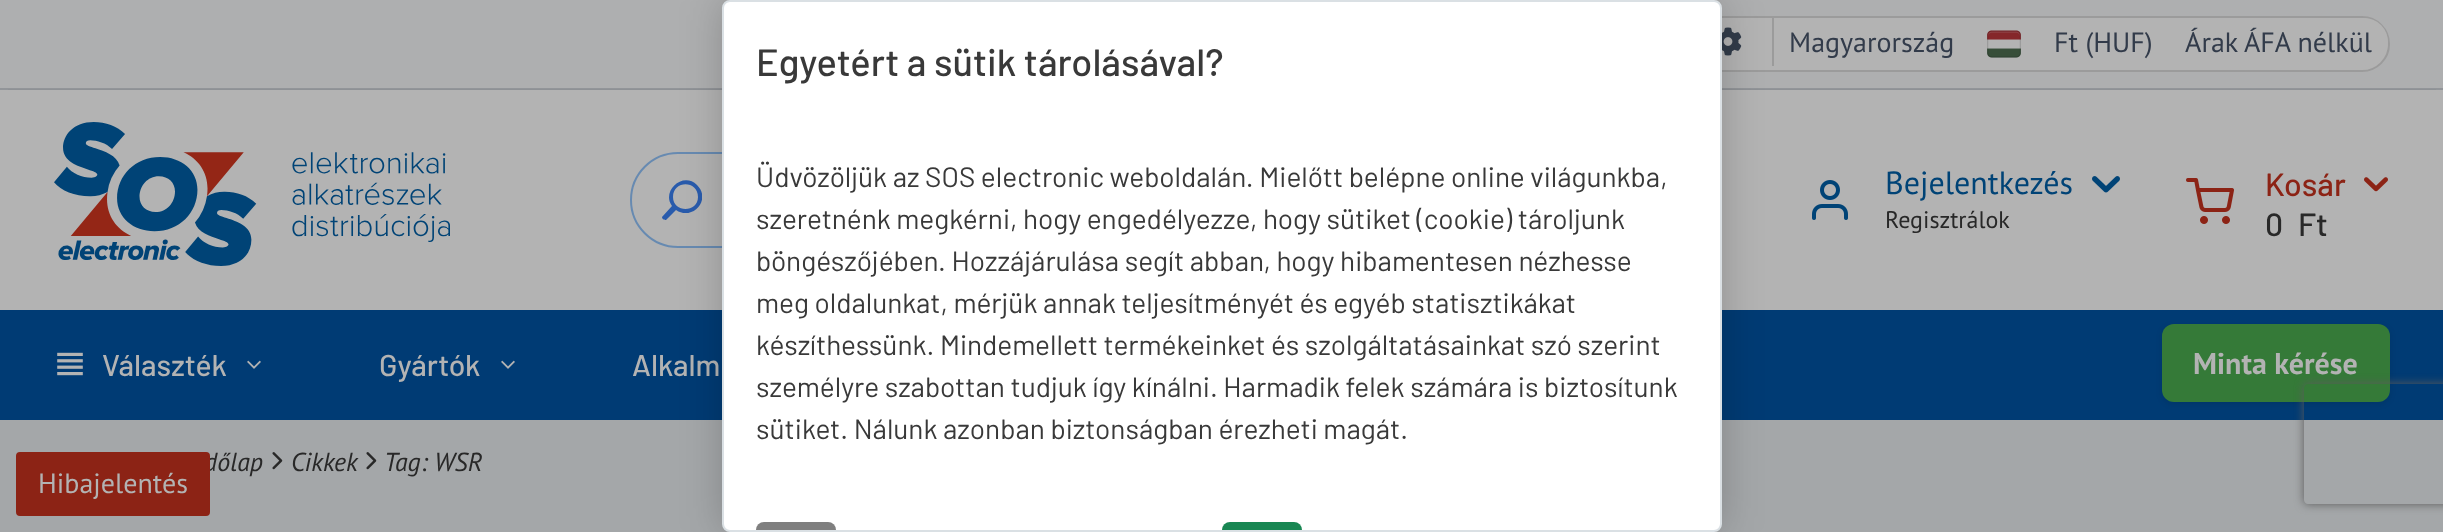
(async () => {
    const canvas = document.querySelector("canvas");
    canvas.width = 2443;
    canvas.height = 532;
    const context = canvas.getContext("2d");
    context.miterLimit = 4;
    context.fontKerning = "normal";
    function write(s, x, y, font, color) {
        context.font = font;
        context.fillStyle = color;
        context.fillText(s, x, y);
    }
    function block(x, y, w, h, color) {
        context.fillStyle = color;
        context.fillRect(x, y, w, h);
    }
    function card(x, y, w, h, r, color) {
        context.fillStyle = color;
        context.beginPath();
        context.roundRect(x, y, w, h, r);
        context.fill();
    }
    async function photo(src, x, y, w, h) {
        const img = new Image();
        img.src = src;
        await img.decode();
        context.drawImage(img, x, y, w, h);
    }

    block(0, 0, 2443, 532, "rgb(164, 167, 169)");
    block(0, 90, 2443, 220, "rgb(179, 179, 179)");
    block(0, 0, 2443, 88, "rgb(174, 175, 176)");
    block(0, 88, 2443, 2, "rgb(146, 149, 153)");
    context.fillStyle = "rgb(179, 179, 179)";
    context.beginPath();
    context.roundRect(1681, 17, 708, 54, 27);
    context.fill();
    context.strokeStyle = "rgb(155, 155, 155)";
    context.lineWidth = 2;
    context.stroke();
    block(1772, 18, 2, 48, "rgb(155, 155, 155)");
    await photo("media/1.png", 1722, 27, 20, 29);
    write("Magyarország", 1789, 52, "28px PT Sans", "rgb(50, 59, 74)");
    await photo("media/2.png", 1987, 30, 34, 28);
    write("Ft (HUF)", 2054, 52, "28px PT Sans", "rgb(50, 59, 74)");
    context.fillStyle = "rgb(179, 179, 179)";
    context.beginPath();
    context.roundRect(2170, 18, 218, 48, [0, 24, 24, 0]);
    context.fill();
    write("Árak ÁFA nélkül", 2185, 52, "28px PT Sans", "rgb(50, 59, 74)");
    context.save();
    context.beginPath();
    context.rect(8, 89, 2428, 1);
    context.clip();
    context.fillStyle = "rgba(0, 0, 0, 0.1)";
    context.filter = "blur(3px)";
    context.beginPath();
    context.rect(0, 92, 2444, 220);
    context.fill();
    context.filter = "none";
    context.restore();
    await photo("media/3.png", 54, 122, 396, 144);
    context.beginPath();
    context.roundRect(631, 153, 1078, 94, 47);
    context.strokeStyle = "rgb(103, 138, 177)";
    context.stroke();
    context.save();
    context.beginPath();
    context.rect(662, 180, 40, 40);
    context.clip();
    context.fillStyle = "rgb(41, 91, 172)";
    context.beginPath();
    context.moveTo(672, 206);
    context.bezierCurveTo(661, 191, 683, 171, 697, 185);
    context.bezierCurveTo(712, 200, 692, 221, 676, 210);
    context.lineTo(666, 220);
    context.bezierCurveTo(666, 220, 662, 220, 662, 217);
    context.closePath();
    context.moveTo(673, 197);
    context.bezierCurveTo(673, 213, 698, 213, 698, 197);
    context.bezierCurveTo(698, 180, 673, 180, 673, 197);
    context.closePath();
    context.fill();
    context.restore();
    await photo("media/4.png", 1812, 180, 36, 40);
    write("Bejelentkezés", 1885, 194, "32px PT Sans", "rgb(0, 67, 118)");
    await photo("media/5.png", 2092, 176, 28, 17);
    write("Regisztrálok", 1885, 228, "24px PT Sans", "rgb(40, 40, 40)");
    await photo("media/6.png", 2186, 178, 48, 46);
    write("Kosár", 2265, 196, "500 32px Barlow", "rgb(140, 35, 21)");
    await photo("media/7.png", 2364, 177, 24, 15);
    write("0", 2265, 236, "500 32px Barlow", "rgb(40, 40, 40)");
    write("Ft", 2298, 236, "500 32px Barlow", "rgb(40, 40, 40)");
    block(0, 310, 2443, 110, "rgb(0, 59, 116)");
    await photo("media/8.png", 57, 352, 26, 24);
    write("Választék", 102, 376, "500 30px Barlow", "rgb(179, 179, 179)");
    await photo("media/9.png", 247, 360, 14, 9);
    write("Gyártók", 379, 376, "500 30px Barlow", "rgb(179, 179, 179)");
    await photo("media/9.png", 501, 360, 14, 9);
    write("Alkalm", 632, 376, "500 30px Barlow", "rgb(179, 179, 179)");
    context.fillStyle = "rgba(0, 0, 0, 0.1)";
    context.filter = "blur(3px)";
    context.beginPath();
    context.roundRect(2162, 326, 228, 78, 12);
    context.fill();
    context.filter = "none";
    card(2162, 324, 228, 78, 12, "rgb(53, 122, 56)");
    write("Minta kérése", 2193, 374, "bold 30px PT Sans", "rgb(179, 179, 179)");
    write("dőlap", 204, 471, "italic 26px PT Sans", "rgb(40, 40, 40)");
    await photo("media/10.png", 272, 452, 11, 18);
    write("Cikkek", 291, 471, "italic 26px PT Sans", "rgb(40, 40, 40)");
    await photo("media/10.png", 366, 452, 11, 18);
    write("Tag: WSR", 384, 471, "italic 26px PT Sans", "rgb(40, 40, 40)");
    context.fillStyle = "rgba(0, 0, 0, 0.2)";
    context.filter = "blur(20px)";
    context.beginPath();
    context.roundRect(722, 0, 1000, 532, 8);
    context.fill();
    context.filter = "none";
    context.fillStyle = "rgb(255, 255, 255)";
    context.beginPath();
    context.roundRect(723, 1, 998, 530, 7);
    context.fill();
    context.strokeStyle = "rgb(218, 224, 228)";
    context.stroke();
    write("Egyetért a sütik tárolásával?", 756, 76, "500 38px Barlow", "rgb(57, 57, 57)");
    write("Üdvözöljük az SOS electronic weboldalán. Mielőtt belépne online világunkba,", 756, 187, "28px Barlow", "rgb(57, 57, 57)");
    write("szeretnénk megkérni, hogy engedélyezze, hogy sütiket (cookie) tároljunk", 756, 229, "28px Barlow", "rgb(57, 57, 57)");
    write("böngészőjében. Hozzájárulása segít abban, hogy hibamentesen nézhesse", 756, 271, "28px Barlow", "rgb(57, 57, 57)");
    write("meg oldalunkat, mérjük annak teljesítményét és egyéb statisztikákat", 756, 313, "28px Barlow", "rgb(57, 57, 57)");
    write("készíthessünk. Mindemellett termékeinket és szolgáltatásainkat szó szerint", 756, 355, "28px Barlow", "rgb(57, 57, 57)");
    write("személyre szabottan tudjuk így kínálni. Harmadik felek számára is biztosítunk", 756, 397, "28px Barlow", "rgb(57, 57, 57)");
    write("sütiket. Nálunk azonban biztonságban érezheti magát.", 756, 439, "28px Barlow", "rgb(57, 57, 57)");
    context.fillStyle = "rgb(127, 127, 127)";
    context.beginPath();
    context.roundRect(756, 522, 80, 8, [8, 8, 0, 0]);
    context.fill();
    context.fillStyle = "rgb(25, 135, 83)";
    context.beginPath();
    context.roundRect(1222, 522, 80, 8, [8, 8, 0, 0]);
    context.fill();
    context.save();
    context.beginPath();
    context.moveTo(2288, 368);
    context.lineTo(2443, 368);
    context.lineTo(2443, 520);
    context.lineTo(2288, 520);
    context.closePath();
    context.moveTo(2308, 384);
    context.lineTo(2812, 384);
    context.bezierCurveTo(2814, 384, 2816, 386, 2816, 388);
    context.lineTo(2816, 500);
    context.bezierCurveTo(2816, 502, 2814, 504, 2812, 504);
    context.lineTo(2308, 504);
    context.bezierCurveTo(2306, 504, 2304, 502, 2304, 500);
    context.lineTo(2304, 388);
    context.bezierCurveTo(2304, 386, 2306, 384, 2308, 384);
    context.closePath();
    context.clip("evenodd");
    context.fillStyle = "rgb(90, 90, 90)";
    context.filter = "blur(5px)";
    context.beginPath();
    context.roundRect(2304, 384, 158, 120, 4);
    context.fill();
    context.filter = "none";
    context.restore();
    context.fillStyle = "rgb(140, 35, 21)";
    context.beginPath();
    context.roundRect(17, 453, 192, 62, 3);
    context.fill();
    context.strokeStyle = "rgb(140, 35, 21)";
    context.stroke();
    write("Hibajelentés", 38, 493, "28px PT Sans", "rgb(179, 179, 179)");
})();
